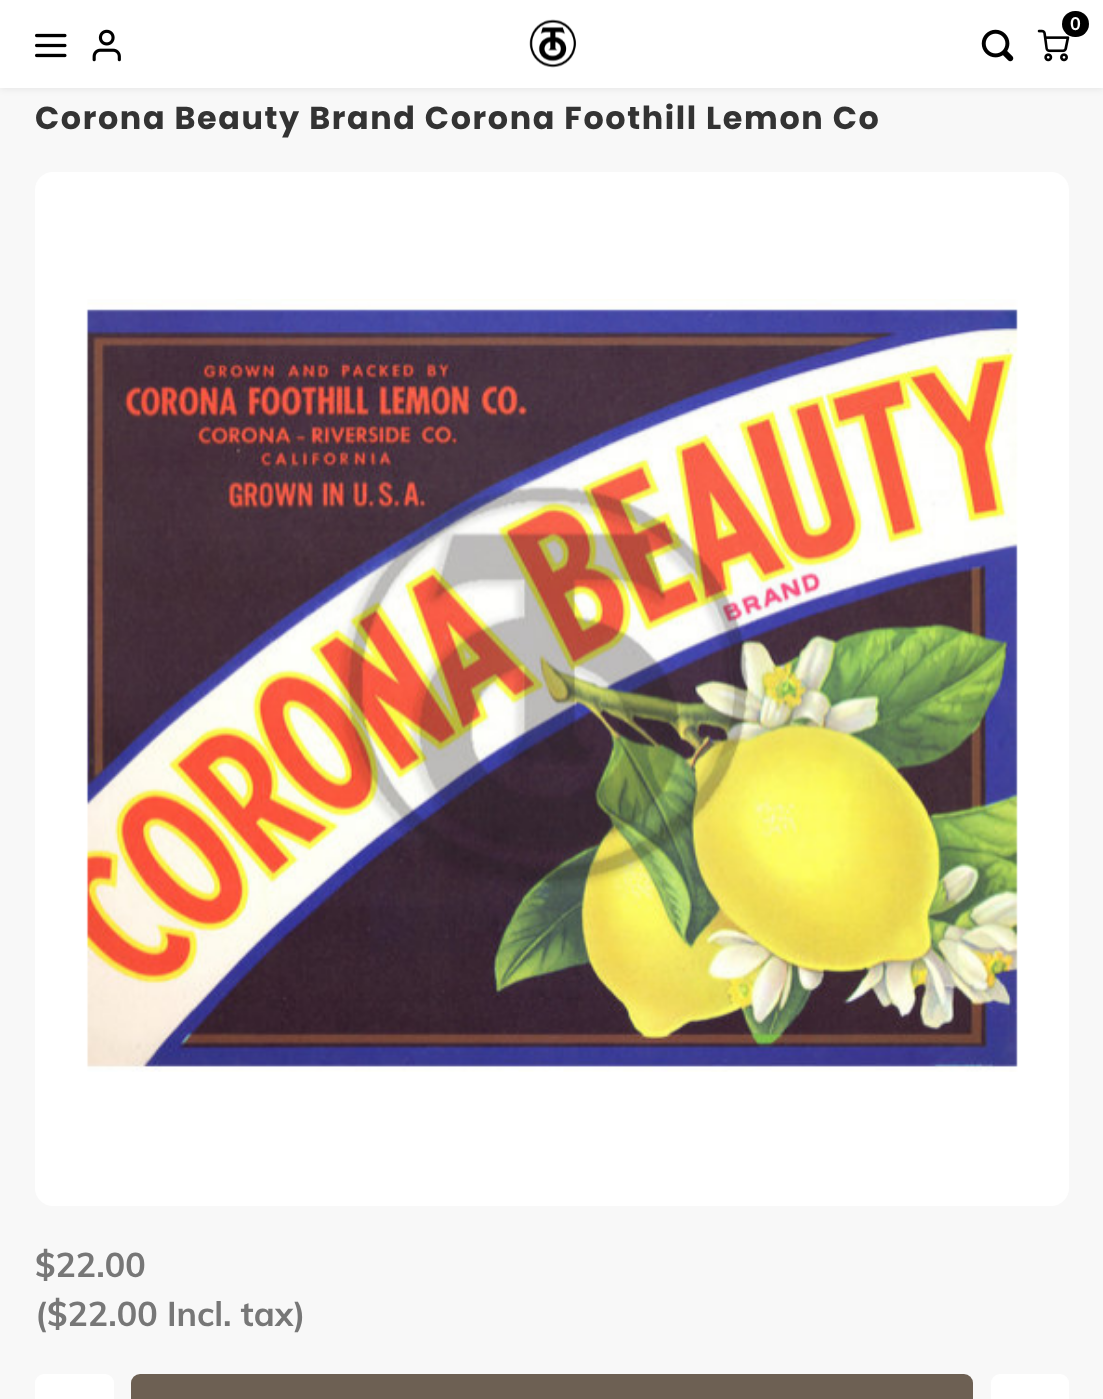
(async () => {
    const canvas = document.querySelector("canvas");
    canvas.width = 1103;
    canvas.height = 1399;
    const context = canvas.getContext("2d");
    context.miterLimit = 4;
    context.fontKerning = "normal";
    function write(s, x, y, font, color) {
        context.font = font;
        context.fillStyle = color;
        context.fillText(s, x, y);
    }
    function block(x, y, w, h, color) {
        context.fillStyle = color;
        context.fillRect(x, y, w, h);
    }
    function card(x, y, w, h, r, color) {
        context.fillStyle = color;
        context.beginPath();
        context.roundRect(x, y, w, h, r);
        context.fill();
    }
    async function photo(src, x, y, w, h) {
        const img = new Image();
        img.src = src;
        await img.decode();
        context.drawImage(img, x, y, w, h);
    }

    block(0, 0, 1103, 1399, "rgb(248, 248, 248)");
    context.fillStyle = "rgba(0, 0, 0, 0.08)";
    context.filter = "blur(3.5px)";
    context.beginPath();
    context.rect(0, 2, 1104, 87);
    context.fill();
    context.filter = "none";
    block(0, 0, 1103, 88, "rgb(255, 255, 255)");
    await photo("media/1.png", 35, 33, 32, 25);
    await photo("media/2.png", 92, 29, 29, 33);
    await photo("media/3.png", 529, 19, 48, 49);
    await photo("media/4.png", 1037, 29, 33, 33);
    card(1062, 11, 27, 26, 13, "rgb(0, 0, 0)");
    write("0", 1070, 30, "bold 18px Muli", "rgb(255, 255, 255)");
    await photo("media/5.png", 981, 29, 33, 33);
    context.letterSpacing = "1.6px";
    write("Corona Beauty Brand Corona Foothill Lemon Co", 35, 129, "bold 31.85px Poppins", "rgb(51, 51, 51)");
    card(35, 172, 1034, 1034, 18, "rgb(255, 255, 255)");
    await photo("media/6.png", 86, 299, 932, 773);
    context.letterSpacing = "0px";
    write("$22.00", 35, 1277, "bold 34px Muli", "rgb(119, 119, 119)");
    write("($22.00 Incl. tax)", 35, 1326, "bold 34px Muli", "rgb(119, 119, 119)");
    card(35, 1374, 79, 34, 9, "rgb(255, 255, 255)");
    card(131, 1374, 842, 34, 9, "rgb(109, 96, 83)");
    card(991, 1374, 78, 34, 9, "rgb(255, 255, 255)");
})();
